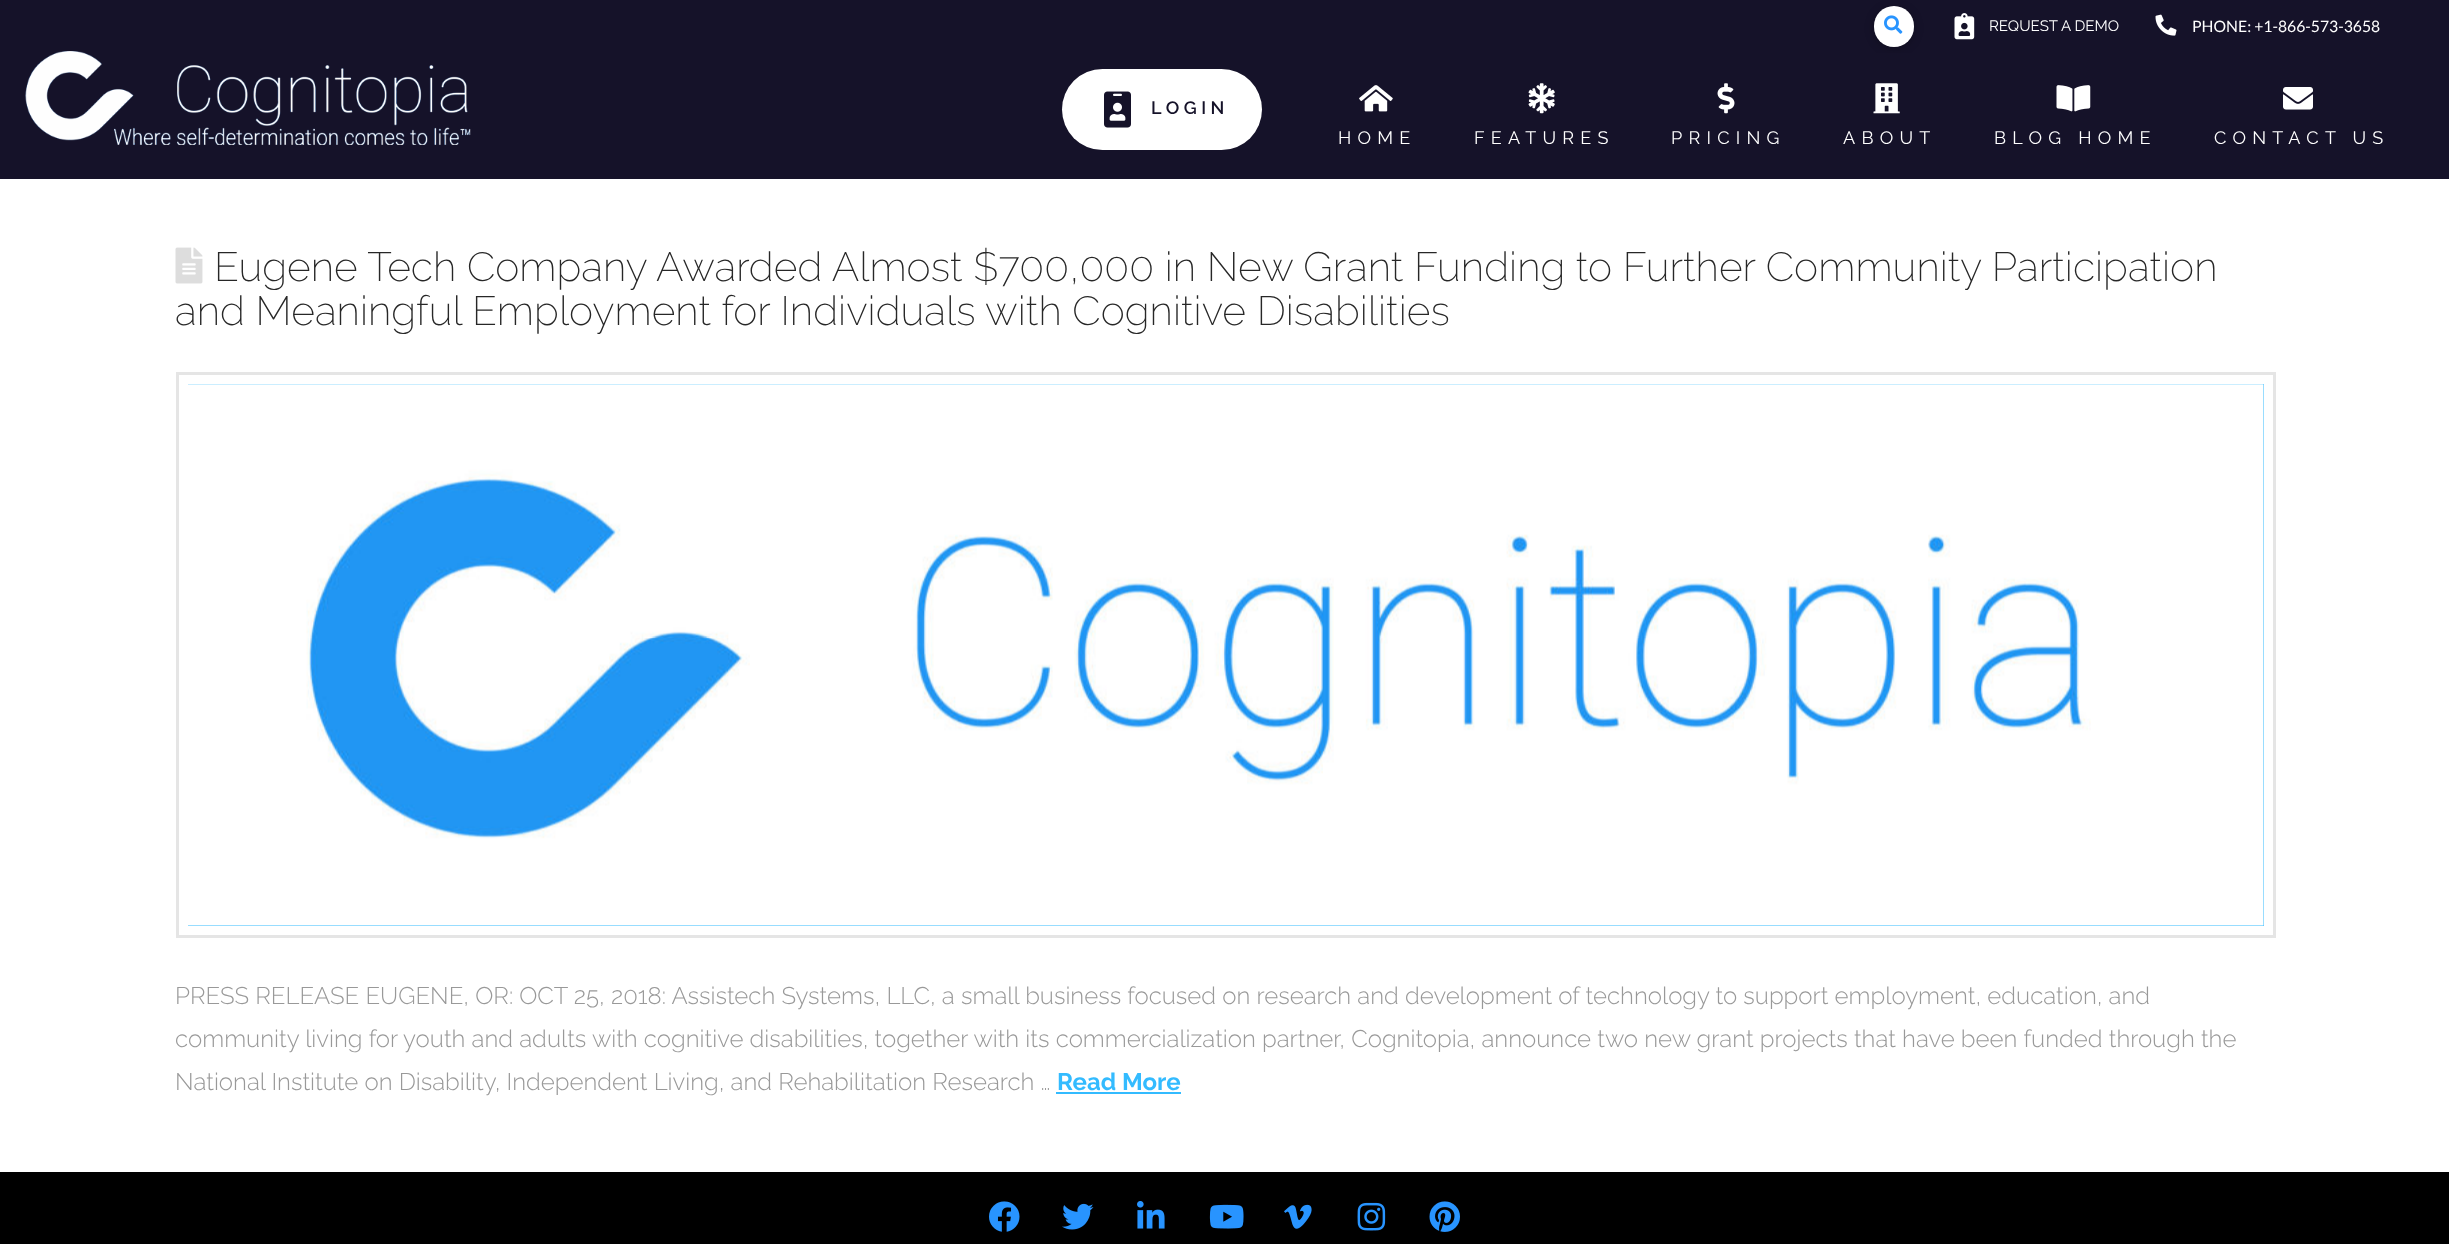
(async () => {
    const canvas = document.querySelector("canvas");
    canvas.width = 2449;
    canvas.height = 1244;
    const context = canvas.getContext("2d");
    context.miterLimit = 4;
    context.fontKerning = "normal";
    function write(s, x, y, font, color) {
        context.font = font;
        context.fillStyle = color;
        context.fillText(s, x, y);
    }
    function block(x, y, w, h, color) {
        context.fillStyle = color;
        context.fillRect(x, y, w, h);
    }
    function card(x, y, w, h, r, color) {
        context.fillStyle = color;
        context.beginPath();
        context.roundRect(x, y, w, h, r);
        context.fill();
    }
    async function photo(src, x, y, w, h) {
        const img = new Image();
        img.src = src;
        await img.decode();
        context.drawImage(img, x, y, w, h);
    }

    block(0, 0, 2449, 1244, "rgb(255, 255, 255)");
    block(0, 0, 2449, 53, "rgb(21, 18, 41)");
    context.fillStyle = "rgba(0, 0, 0, 0.25)";
    context.filter = "blur(5px)";
    context.beginPath();
    context.roundRect(1874, 8, 40, 40, 20);
    context.fill();
    context.filter = "none";
    card(1874, 6, 40, 41, 20, "rgb(255, 255, 255)");
    await photo("media/1.png", 1884, 15, 19, 19);
    await photo("media/2.png", 1954, 13, 21, 27);
    write("REQUEST A DEMO", 1989, 31, "15.1px Raleway", "rgb(255, 255, 255)");
    await photo("media/3.png", 2155, 14, 22, 22);
    write("PHONE: +1-866-573-3658", 2192, 32, "15.75px Lato", "rgb(255, 255, 255)");
    block(0, 53, 2449, 126, "rgb(21, 18, 41)");
    await photo("media/4.png", 25, 51, 446, 94);
    card(1062, 69, 200, 81, 40.5, "rgb(255, 255, 255)");
    await photo("media/5.png", 1104, 91, 27, 37);
    context.letterSpacing = "4.5px";
    write("LOGIN", 1151, 114, "600 18px Raleway", "rgb(21, 18, 41)");
    await photo("media/6.png", 1359, 85, 34, 27);
    context.letterSpacing = "6.25px";
    write("HOME", 1338, 144, "18px Raleway", "rgb(255, 255, 255)");
    await photo("media/7.png", 1528, 83, 27, 31);
    write("FEATURES", 1474, 144, "18px Raleway", "rgb(255, 255, 255)");
    await photo("media/8.png", 1717, 83, 18, 31);
    write("PRICING", 1671, 144, "18px Raleway", "rgb(255, 255, 255)");
    await photo("media/9.png", 1873, 83, 27, 31);
    write("ABOUT", 1843, 144, "18px Raleway", "rgb(255, 255, 255)");
    await photo("media/10.png", 2056, 85, 35, 27);
    write("BLOG HOME", 1994, 144, "18px Raleway", "rgb(255, 255, 255)");
    await photo("media/11.png", 2283, 87, 30, 23);
    write("CONTACT US", 2214, 144, "18px Raleway", "rgb(255, 255, 255)");
    await photo("media/12.png", 175, 247, 28, 37);
    context.letterSpacing = "0.05px";
    write("Eugene Tech Company Awarded Almost $700,000 in New Grant Funding to Further Community Participation", 214, 281, "200 40.8px Raleway", "rgb(39, 39, 39)");
    write("and Meaningful Employment for Individuals with Cognitive Disabilities", 175, 325, "200 40.8px Raleway", "rgb(39, 39, 39)");
    context.strokeStyle = "rgb(229, 229, 229)";
    context.lineWidth = 3;
    context.strokeRect(177.5, 373.5, 2097, 563);
    block(188, 384, 2076, 542, "rgb(51, 187, 255)");
    await photo("media/13.png", 188, 384, 2076, 542);
    context.letterSpacing = "0px";
    write("PRESS RELEASE EUGENE, OR: OCT 25, 2018: Assistech Systems, LLC, a small business focused on research and development of technology to support employment, education, and", 175, 1004, "300 24px Raleway", "rgb(153, 153, 153)");
    write("community living for youth and adults with cognitive disabilities, together with its commercialization partner, Cognitopia, announce two new grant projects that have been funded through the", 175, 1047, "300 24px Raleway", "rgb(153, 153, 153)");
    write("National Institute on Disability, Independent Living, and Rehabilitation Research …", 175, 1090, "300 24px Raleway", "rgb(153, 153, 153)");
    write("Read More", 1057, 1090, "bold 24px Raleway", "rgb(51, 187, 255)");
    block(1056, 1092, 125, 2, "rgb(51, 187, 255)");
    block(0, 1172, 2449, 72, "rgb(0, 0, 0)");
    await photo("media/14.png", 989, 1201, 31, 31);
    await photo("media/15.png", 1062, 1203, 32, 27);
    await photo("media/16.png", 1137, 1201, 28, 28);
    await photo("media/17.png", 1209, 1204, 35, 25);
    await photo("media/18.png", 1284, 1204, 28, 25);
    await photo("media/19.png", 1357, 1202, 29, 29);
    await photo("media/20.png", 1429, 1201, 31, 31);
})();
